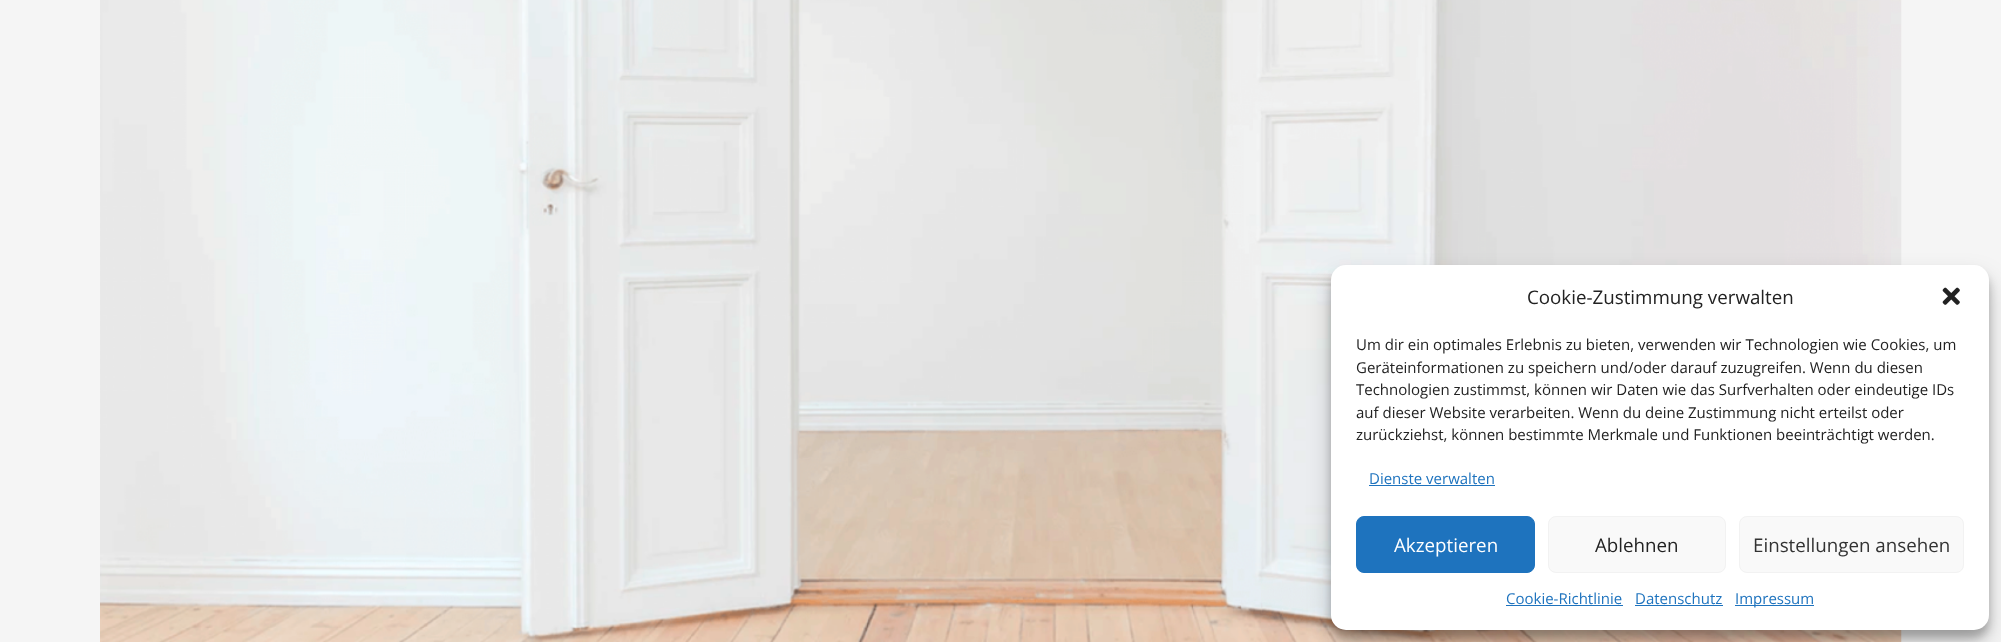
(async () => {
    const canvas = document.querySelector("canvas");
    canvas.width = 2001;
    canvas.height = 642;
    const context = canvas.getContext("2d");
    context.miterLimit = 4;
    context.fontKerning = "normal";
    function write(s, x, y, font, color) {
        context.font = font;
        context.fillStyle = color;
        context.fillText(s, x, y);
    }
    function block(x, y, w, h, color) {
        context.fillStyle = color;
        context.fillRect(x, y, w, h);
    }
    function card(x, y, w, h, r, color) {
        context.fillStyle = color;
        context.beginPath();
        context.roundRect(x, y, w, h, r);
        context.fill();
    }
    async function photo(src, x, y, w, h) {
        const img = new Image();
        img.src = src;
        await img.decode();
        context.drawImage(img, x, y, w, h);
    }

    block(0, 0, 2001, 642, "rgb(245, 245, 245)");
    await photo("media/1.png", 100, 0, 1802, 642);
    context.fillStyle = "rgba(0, 0, 0, 0.23)";
    context.filter = "blur(4px)";
    context.beginPath();
    context.roundRect(1331, 273, 658, 365, 15);
    context.fill();
    context.filter = "none";
    context.fillStyle = "rgba(0, 0, 0, 0.19)";
    context.filter = "blur(12.5px)";
    context.beginPath();
    context.roundRect(1331, 278, 658, 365, 15);
    context.fill();
    context.filter = "none";
    card(1331, 265, 658, 365, 15, "rgb(255, 255, 255)");
    write("Cookie-Zustimmung verwalten", 1527, 304, "18.75px Open Sans", "rgb(34, 34, 34)");
    await photo("media/2.png", 1942, 287, 18, 18);
    write("Um dir ein optimales Erlebnis zu bieten, verwenden wir Technologien wie Cookies, um", 1356, 350, "15px Open Sans", "rgb(34, 34, 34)");
    write("Geräteinformationen zu speichern und/oder darauf zuzugreifen. Wenn du diesen", 1356, 373, "15px Open Sans", "rgb(34, 34, 34)");
    write("Technologien zustimmst, können wir Daten wie das Surfverhalten oder eindeutige IDs", 1356, 395, "15px Open Sans", "rgb(34, 34, 34)");
    write("auf dieser Website verarbeiten. Wenn du deine Zustimmung nicht erteilst oder", 1356, 418, "15px Open Sans", "rgb(34, 34, 34)");
    write("zurückziehst, können bestimmte Merkmale und Funktionen beeinträchtigt werden.", 1356, 440, "15px Open Sans", "rgb(34, 34, 34)");
    write("Dienste verwalten", 1369, 484, "15px Open Sans", "rgb(30, 115, 190)");
    block(1369, 485, 126, 1, "rgb(30, 115, 190)");
    context.beginPath();
    context.roundRect(1356.5, 516.5, 178, 56, 7.5);
    context.fill();
    context.strokeStyle = "rgb(30, 115, 190)";
    context.stroke();
    write("Akzeptieren", 1394, 552, "18.75px Open Sans", "rgb(255, 255, 255)");
    context.fillStyle = "rgb(249, 249, 249)";
    context.beginPath();
    context.roundRect(1548.5, 516.5, 177, 56, 7.5);
    context.fill();
    context.strokeStyle = "rgb(242, 242, 242)";
    context.stroke();
    write("Ablehnen", 1595, 552, "18.75px Open Sans", "rgb(34, 34, 34)");
    context.fillStyle = "rgb(249, 249, 249)";
    context.beginPath();
    context.roundRect(1739.5, 516.5, 224, 56, 7.5);
    context.fill();
    context.stroke();
    write("Einstellungen ansehen", 1753, 552, "18.75px Open Sans", "rgb(51, 51, 51)");
    write("Cookie-Richtlinie", 1506, 604, "15px Open Sans", "rgb(30, 115, 190)");
    block(1506, 605, 117, 1, "rgb(30, 115, 190)");
    write("Datenschutz", 1635, 604, "15px Open Sans", "rgb(30, 115, 190)");
    block(1635, 605, 88, 1, "rgb(30, 115, 190)");
    block(1735, 605, 79, 1, "rgb(30, 115, 190)");
    write("Impressum", 1735, 604, "15px Open Sans", "rgb(30, 115, 190)");
})();
